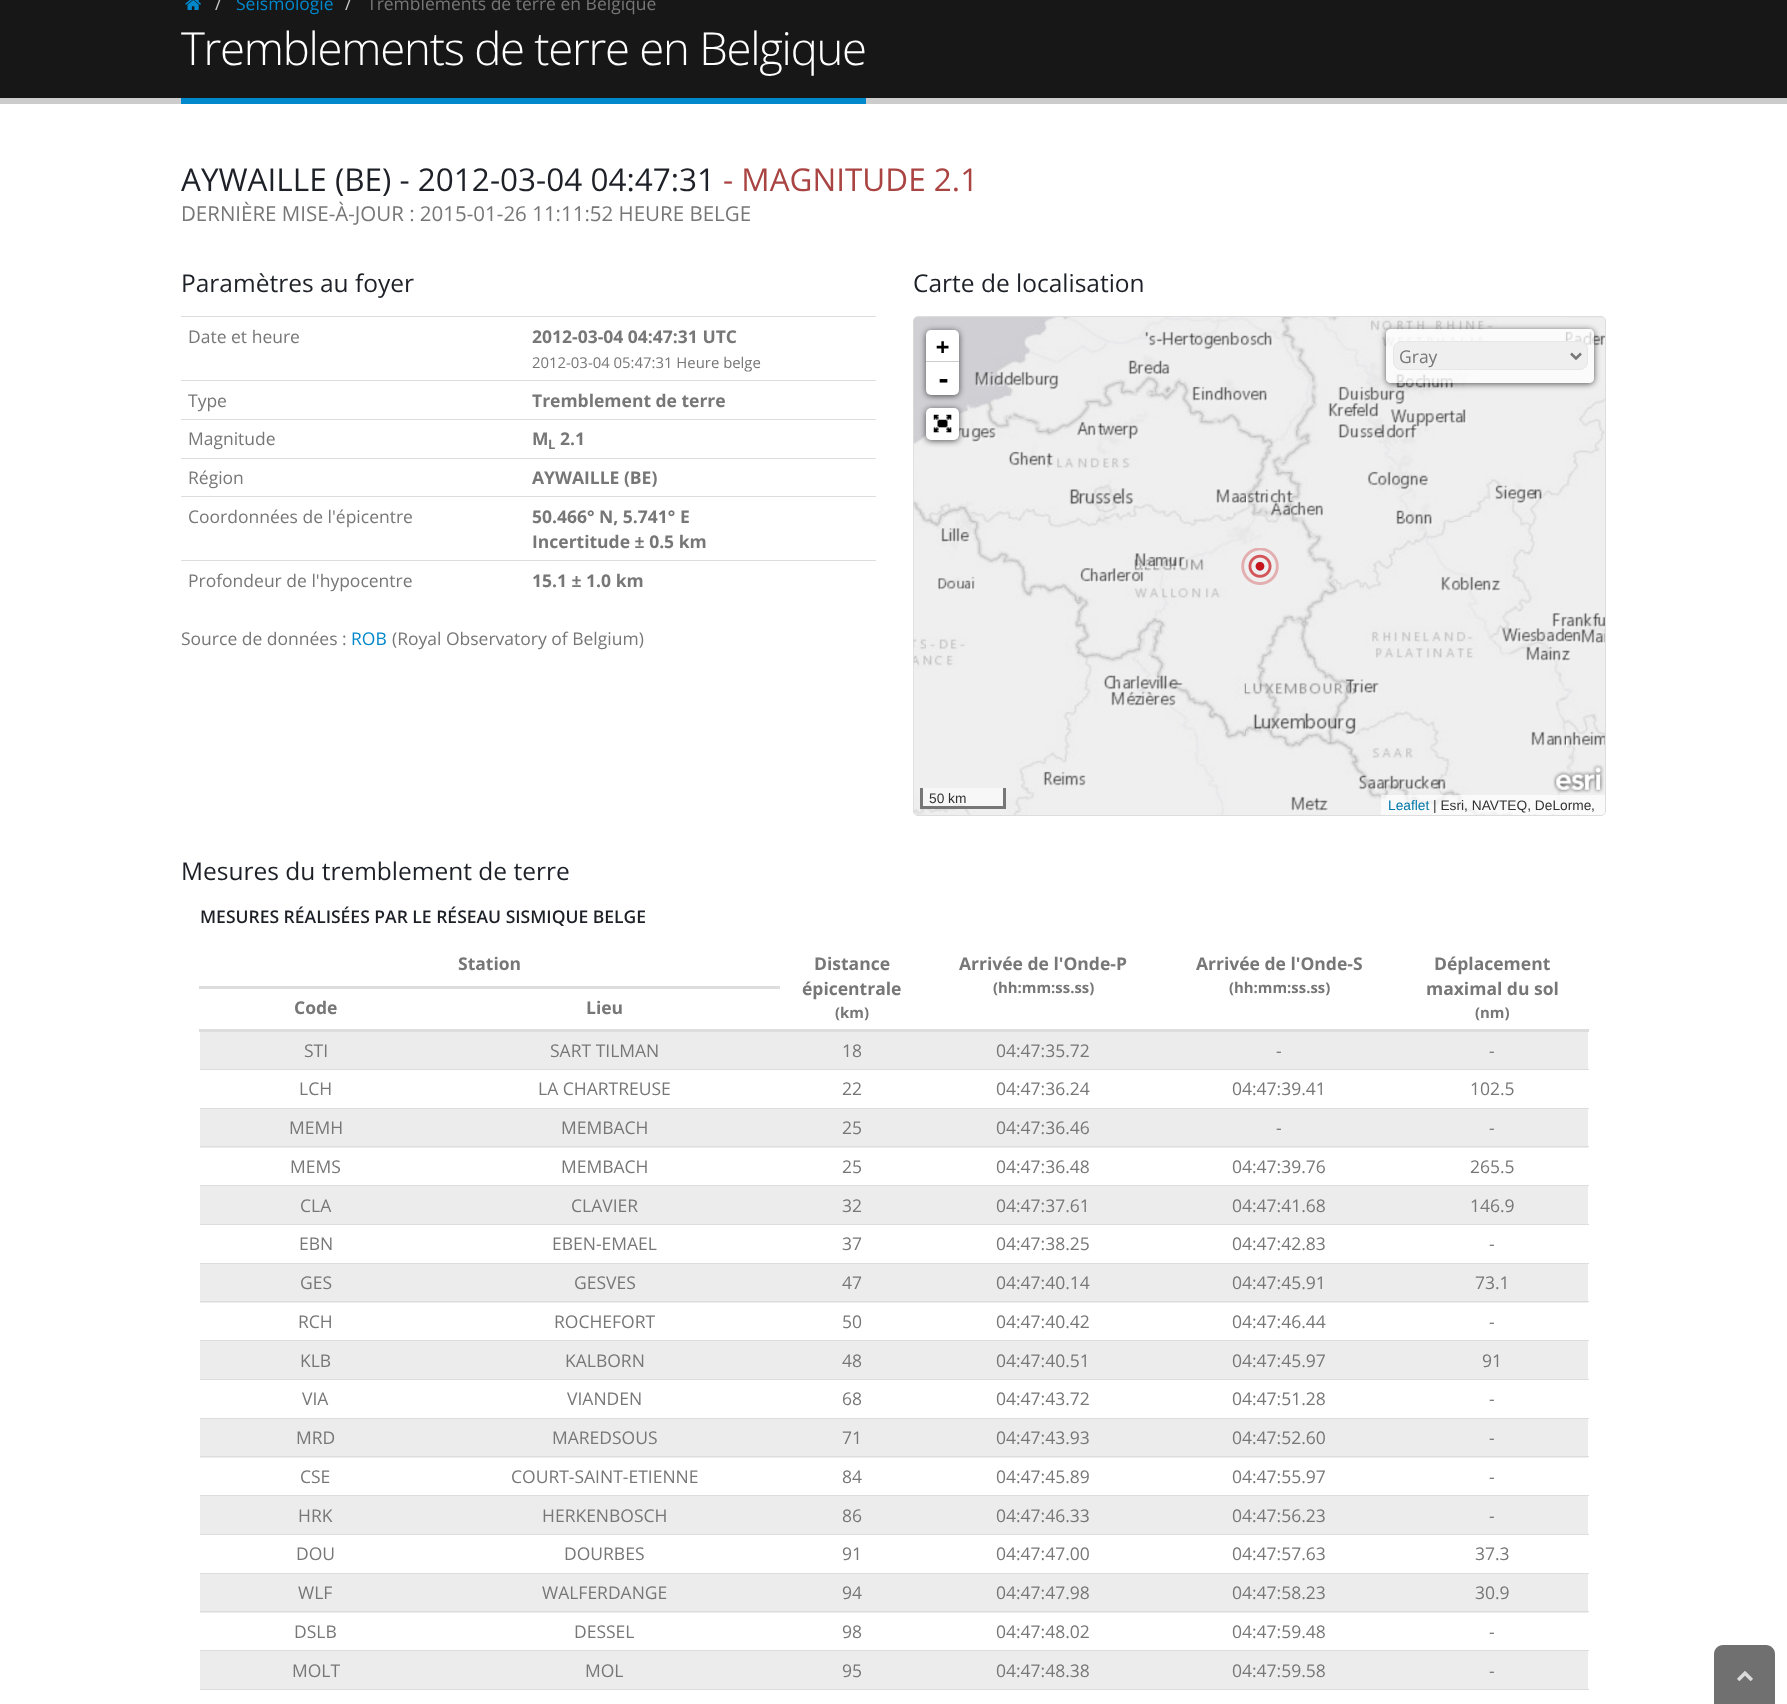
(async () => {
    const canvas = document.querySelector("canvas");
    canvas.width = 1787;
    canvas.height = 1704;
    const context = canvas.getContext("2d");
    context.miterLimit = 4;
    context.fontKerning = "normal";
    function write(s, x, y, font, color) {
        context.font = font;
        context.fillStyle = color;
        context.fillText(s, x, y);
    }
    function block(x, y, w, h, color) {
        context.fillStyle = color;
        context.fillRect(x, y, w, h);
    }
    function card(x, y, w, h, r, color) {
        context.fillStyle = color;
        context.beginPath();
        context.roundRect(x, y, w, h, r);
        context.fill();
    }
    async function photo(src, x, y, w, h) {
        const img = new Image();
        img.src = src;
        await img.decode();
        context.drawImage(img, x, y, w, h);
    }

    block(0, 0, 1787, 1704, "rgb(255, 255, 255)");
    block(0, 0, 1787, 98, "rgb(23, 23, 23)");
    block(0, 98, 1787, 6, "rgb(204, 204, 204)");
    await photo("media/1.png", 185, 0, 16, 10);
    write("/", 215, 10, "17.5px Open Sans", "rgb(204, 204, 204)");
    write("Séismologie", 236, 10, "17.5px Open Sans", "rgb(0, 136, 204)");
    write("/", 345, 10, "17.5px Open Sans", "rgb(204, 204, 204)");
    write("Tremblements de terre en Belgique", 367, 10, "17.5px Open Sans", "rgb(119, 119, 119)");
    block(181, 98, 685, 6, "rgb(0, 136, 204)");
    context.letterSpacing = "-1.25px";
    write("Tremblements de terre en Belgique", 181, 65, "300 45.5px Open Sans", "rgb(255, 255, 255)");
    context.letterSpacing = "0px";
    write("AYWAILLE (BE) - 2012-03-04 04:47:31", 181, 191, "31.5px Open Sans", "rgb(29, 33, 39)");
    write("- MAGNITUDE 2.1", 723, 191, "31.5px Open Sans", "rgb(169, 68, 66)");
    write("DERNIÈRE MISE-À-JOUR : 2015-01-26 11:11:52 HEURE BELGE", 181, 221, "20.5px Open Sans", "rgb(119, 119, 119)");
    write("Paramètres au foyer", 181, 292, "24.5px Open Sans", "rgb(29, 33, 39)");
    write("Date et heure", 188, 343, "17.5px Open Sans", "rgb(119, 119, 119)");
    block(181, 316, 695, 1, "rgb(221, 221, 221)");
    write("2012-03-04 04:47:31 UTC", 532, 343, "bold 17.5px Open Sans", "rgb(119, 119, 119)");
    write("2012-03-04 05:47:31 Heure belge", 532, 368, "14.9px Open Sans", "rgb(119, 119, 119)");
    write("Type", 188, 407, "17.5px Open Sans", "rgb(119, 119, 119)");
    block(181, 380, 695, 1, "rgb(221, 221, 221)");
    write("Tremblement de terre", 532, 407, "bold 17.5px Open Sans", "rgb(119, 119, 119)");
    write("Magnitude", 188, 445, "17.5px Open Sans", "rgb(119, 119, 119)");
    block(181, 419, 695, 1, "rgb(221, 221, 221)");
    write("M", 532, 445, "bold 17.5px Open Sans", "rgb(119, 119, 119)");
    write("L", 548, 449, "bold 13px Open Sans", "rgb(119, 119, 119)");
    write("2.1", 560, 445, "bold 17.5px Open Sans", "rgb(119, 119, 119)");
    write("Région", 188, 484, "17.5px Open Sans", "rgb(119, 119, 119)");
    block(181, 458, 695, 1, "rgb(221, 221, 221)");
    write("AYWAILLE (BE)", 532, 484, "bold 17.5px Open Sans", "rgb(119, 119, 119)");
    write("Coordonnées de l'épicentre", 188, 523, "17.5px Open Sans", "rgb(119, 119, 119)");
    block(181, 496, 695, 1, "rgb(221, 221, 221)");
    write("50.466° N, 5.741° E", 532, 523, "bold 17.5px Open Sans", "rgb(119, 119, 119)");
    write("Incertitude ± 0.5 km", 532, 548, "bold 17.5px Open Sans", "rgb(119, 119, 119)");
    write("Profondeur de l'hypocentre", 188, 587, "17.5px Open Sans", "rgb(119, 119, 119)");
    block(181, 560, 695, 1, "rgb(221, 221, 221)");
    write("15.1 ± 1.0 km", 532, 587, "bold 17.5px Open Sans", "rgb(119, 119, 119)");
    write("Source de données :", 181, 645, "17.5px Open Sans", "rgb(119, 119, 119)");
    write("ROB", 351, 645, "17.5px Open Sans", "rgb(0, 136, 204)");
    write("(Royal Observatory of Belgium)", 392, 645, "17.5px Open Sans", "rgb(119, 119, 119)");
    write("Carte de localisation", 913, 292, "24.5px Open Sans", "rgb(29, 33, 39)");
    context.fillStyle = "rgb(221, 221, 221)";
    context.beginPath();
    context.roundRect(913.5, 316.5, 692, 499, 4.5);
    context.fill();
    context.strokeStyle = "rgb(221, 221, 221)";
    context.stroke();
    await photo("media/2.png", 913, 317, 13, 201);
    await photo("media/3.png", 926, 317, 320, 200);
    await photo("media/4.png", 1246, 317, 320, 200);
    await photo("media/5.png", 1566, 317, 39, 200);
    await photo("media/6.png", 913, 517, 13, 298);
    await photo("media/7.png", 926, 517, 320, 298);
    await photo("media/8.png", 1246, 517, 320, 298);
    await photo("media/9.png", 1566, 517, 39, 298);
    await photo("media/10.png", 954, 331, 292, 174);
    await photo("media/11.png", 1246, 331, 320, 187);
    await photo("media/12.png", 1566, 331, 39, 15);
    await photo("media/13.png", 938, 528, 248, 258);
    await photo("media/14.png", 1253, 517, 313, 298);
    await photo("media/15.png", 1566, 613, 39, 202);
    await photo("media/17.png", 1255, 561, 10, 10);
    await photo("media/16.png", 1241, 548, 38, 37);
    context.fillStyle = "rgba(0, 0, 0, 0.65)";
    context.filter = "blur(3px)";
    context.beginPath();
    context.roundRect(926, 331, 33, 65, 5);
    context.fill();
    context.filter = "none";
    context.fillStyle = "rgb(255, 255, 255)";
    context.beginPath();
    context.roundRect(926, 330, 33, 33, [5, 5, 0, 0]);
    context.fill();
    block(926, 361, 33, 1, "rgb(204, 204, 204)");
    write("+", 936, 354, "bold 22px DejaVu Sans Mono", "rgb(0, 0, 0)");
    context.fillStyle = "rgb(255, 255, 255)";
    context.beginPath();
    context.roundRect(926, 363, 33, 32, [0, 0, 5, 5]);
    context.fill();
    write("-", 936, 388, "bold 25px DejaVu Sans Mono", "rgb(0, 0, 0)");
    context.fillStyle = "rgba(0, 0, 0, 0.65)";
    context.filter = "blur(3px)";
    context.beginPath();
    context.roundRect(926, 409, 33, 32, 5);
    context.fill();
    context.filter = "none";
    card(926, 408, 33, 32, 5, "rgb(255, 255, 255)");
    await photo("media/18.png", 933, 414, 19, 19);
    block(923, 788, 80, 18, "rgba(255, 255, 255, 0.5)");
    block(1003, 788, 3, 21, "rgb(119, 119, 119)");
    block(920, 806, 85, 3, "rgb(119, 119, 119)");
    block(920, 788, 3, 21, "rgb(119, 119, 119)");
    write("50 km", 929, 803, "13.75px Liberation Sans", "rgb(51, 51, 51)");
    await photo("media/19.png", 1553, 764, 51, 29);
    context.fillStyle = "rgba(255, 255, 255, 0.7)";
    context.beginPath();
    context.roundRect(1381, 795, 224, 20, [0, 0, 4, 0]);
    context.fill();
    write("Leaflet", 1388, 810, "13.75px Liberation Sans", "rgb(0, 120, 168)");
    write("| Esri, NAVTEQ, DeLorme", 1433, 810, "13.75px Liberation Sans", "rgb(51, 51, 51)");
    write(",", 1591, 810, "13.75px Liberation Sans", "rgb(51, 51, 51)");
    context.save();
    context.beginPath();
    context.moveTo(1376, 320);
    context.lineTo(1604, 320);
    context.lineTo(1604, 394);
    context.lineTo(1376, 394);
    context.closePath();
    context.moveTo(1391, 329);
    context.lineTo(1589, 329);
    context.bezierCurveTo(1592, 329, 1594, 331, 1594, 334);
    context.lineTo(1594, 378);
    context.bezierCurveTo(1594, 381, 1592, 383, 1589, 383);
    context.lineTo(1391, 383);
    context.bezierCurveTo(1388, 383, 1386, 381, 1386, 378);
    context.lineTo(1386, 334);
    context.bezierCurveTo(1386, 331, 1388, 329, 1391, 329);
    context.closePath();
    context.clip("evenodd");
    context.fillStyle = "rgba(0, 0, 0, 0.65)";
    context.filter = "blur(3px)";
    context.beginPath();
    context.roundRect(1386, 330, 208, 54, 5);
    context.fill();
    context.filter = "none";
    context.restore();
    card(1386, 329, 208, 54, 5, "rgba(255, 255, 255, 0.75)");
    context.fillStyle = "rgb(239, 239, 239)";
    context.beginPath();
    context.roundRect(1393.5, 341.5, 194, 28, 7.5);
    context.fill();
    context.strokeStyle = "rgb(229, 231, 233)";
    context.stroke();
    context.beginPath();
    context.moveTo(1571, 353.5);
    context.lineTo(1576, 358.5);
    context.lineTo(1581, 353.5);
    context.strokeStyle = "rgb(119, 119, 119)";
    context.lineWidth = 2.5;
    context.stroke();
    write("Gray", 1399, 363, "17.5px Open Sans", "rgb(119, 119, 119)");
    write("Mesures du tremblement de terre", 181, 880, "24.5px Open Sans", "rgb(29, 33, 39)");
    write("MESURES RÉALISÉES PAR LE RÉSEAU SISMIQUE BELGE", 200, 923, "600 17.5px Open Sans", "rgb(29, 33, 39)");
    block(199, 986, 581, 3, "rgb(221, 221, 221)");
    write("Station", 458, 970, "bold 17.5px Open Sans", "rgb(119, 119, 119)");
    write("Distance", 814, 970, "bold 17.5px Open Sans", "rgb(119, 119, 119)");
    write("épicentrale", 802, 995, "bold 17.5px Open Sans", "rgb(119, 119, 119)");
    write("(km)", 835, 1018, "bold 14.9px Open Sans", "rgb(119, 119, 119)");
    write("Arrivée de l'Onde-P", 959, 970, "bold 17.5px Open Sans", "rgb(119, 119, 119)");
    write("(hh:mm:ss.ss)", 993, 993, "bold 14.9px Open Sans", "rgb(119, 119, 119)");
    write("Arrivée de l'Onde-S", 1196, 970, "bold 17.5px Open Sans", "rgb(119, 119, 119)");
    write("(hh:mm:ss.ss)", 1229, 993, "bold 14.9px Open Sans", "rgb(119, 119, 119)");
    block(199, 1029, 581, 3, "rgb(221, 221, 221)");
    block(778, 1029, 811, 3, "rgb(221, 221, 221)");
    write("Déplacement", 1434, 970, "bold 17.5px Open Sans", "rgb(119, 119, 119)");
    write("maximal du sol", 1426, 995, "bold 17.5px Open Sans", "rgb(119, 119, 119)");
    write("(nm)", 1475, 1018, "bold 14.9px Open Sans", "rgb(119, 119, 119)");
    write("Code", 294, 1014, "bold 17.5px Open Sans", "rgb(119, 119, 119)");
    write("Lieu", 586, 1014, "bold 17.5px Open Sans", "rgb(119, 119, 119)");
    block(200, 1032, 1388, 37, "rgb(236, 236, 236)");
    write("STI", 304, 1057, "17.5px Open Sans", "rgb(119, 119, 119)");
    write("SART TILMAN", 550, 1057, "17.5px Open Sans", "rgb(119, 119, 119)");
    write("18", 842, 1057, "17.5px Open Sans", "rgb(119, 119, 119)");
    write("04:47:35.72", 996, 1057, "17.5px Open Sans", "rgb(119, 119, 119)");
    write("-", 1276, 1057, "17.5px Open Sans", "rgb(119, 119, 119)");
    write("-", 1489, 1057, "17.5px Open Sans", "rgb(119, 119, 119)");
    write("LCH", 299, 1095, "17.5px Open Sans", "rgb(119, 119, 119)");
    write("LA CHARTREUSE", 538, 1095, "17.5px Open Sans", "rgb(119, 119, 119)");
    write("22", 842, 1095, "17.5px Open Sans", "rgb(119, 119, 119)");
    write("04:47:36.24", 996, 1095, "17.5px Open Sans", "rgb(119, 119, 119)");
    write("04:47:39.41", 1232, 1095, "17.5px Open Sans", "rgb(119, 119, 119)");
    block(200, 1069, 1389, 1, "rgb(221, 221, 221)");
    write("102.5", 1470, 1095, "17.5px Open Sans", "rgb(119, 119, 119)");
    block(200, 1109, 1388, 39, "rgb(236, 236, 236)");
    write("MEMH", 289, 1134, "17.5px Open Sans", "rgb(119, 119, 119)");
    write("MEMBACH", 561, 1134, "17.5px Open Sans", "rgb(119, 119, 119)");
    write("25", 842, 1134, "17.5px Open Sans", "rgb(119, 119, 119)");
    write("04:47:36.46", 996, 1134, "17.5px Open Sans", "rgb(119, 119, 119)");
    write("-", 1276, 1134, "17.5px Open Sans", "rgb(119, 119, 119)");
    block(200, 1108, 1389, 1, "rgb(221, 221, 221)");
    write("-", 1489, 1134, "17.5px Open Sans", "rgb(119, 119, 119)");
    write("MEMS", 290, 1173, "17.5px Open Sans", "rgb(119, 119, 119)");
    write("MEMBACH", 561, 1173, "17.5px Open Sans", "rgb(119, 119, 119)");
    write("25", 842, 1173, "17.5px Open Sans", "rgb(119, 119, 119)");
    write("04:47:36.48", 996, 1173, "17.5px Open Sans", "rgb(119, 119, 119)");
    write("04:47:39.76", 1232, 1173, "17.5px Open Sans", "rgb(119, 119, 119)");
    block(200, 1146, 1389, 1, "rgb(221, 221, 221)");
    write("265.5", 1470, 1173, "17.5px Open Sans", "rgb(119, 119, 119)");
    block(200, 1186, 1388, 38, "rgb(236, 236, 236)");
    write("CLA", 300, 1212, "17.5px Open Sans", "rgb(119, 119, 119)");
    write("CLAVIER", 571, 1212, "17.5px Open Sans", "rgb(119, 119, 119)");
    write("32", 842, 1212, "17.5px Open Sans", "rgb(119, 119, 119)");
    write("04:47:37.61", 996, 1212, "17.5px Open Sans", "rgb(119, 119, 119)");
    write("04:47:41.68", 1232, 1212, "17.5px Open Sans", "rgb(119, 119, 119)");
    block(200, 1185, 1389, 1, "rgb(221, 221, 221)");
    write("146.9", 1470, 1212, "17.5px Open Sans", "rgb(119, 119, 119)");
    write("EBN", 299, 1250, "17.5px Open Sans", "rgb(119, 119, 119)");
    write("EBEN-EMAEL", 552, 1250, "17.5px Open Sans", "rgb(119, 119, 119)");
    write("37", 842, 1250, "17.5px Open Sans", "rgb(119, 119, 119)");
    write("04:47:38.25", 996, 1250, "17.5px Open Sans", "rgb(119, 119, 119)");
    write("04:47:42.83", 1232, 1250, "17.5px Open Sans", "rgb(119, 119, 119)");
    block(200, 1224, 1389, 1, "rgb(221, 221, 221)");
    write("-", 1489, 1250, "17.5px Open Sans", "rgb(119, 119, 119)");
    block(200, 1264, 1388, 39, "rgb(236, 236, 236)");
    write("GES", 300, 1289, "17.5px Open Sans", "rgb(119, 119, 119)");
    write("GESVES", 574, 1289, "17.5px Open Sans", "rgb(119, 119, 119)");
    write("47", 842, 1289, "17.5px Open Sans", "rgb(119, 119, 119)");
    write("04:47:40.14", 996, 1289, "17.5px Open Sans", "rgb(119, 119, 119)");
    write("04:47:45.91", 1232, 1289, "17.5px Open Sans", "rgb(119, 119, 119)");
    block(200, 1263, 1389, 1, "rgb(221, 221, 221)");
    write("73.1", 1475, 1289, "17.5px Open Sans", "rgb(119, 119, 119)");
    write("RCH", 298, 1328, "17.5px Open Sans", "rgb(119, 119, 119)");
    write("ROCHEFORT", 554, 1328, "17.5px Open Sans", "rgb(119, 119, 119)");
    write("50", 842, 1328, "17.5px Open Sans", "rgb(119, 119, 119)");
    write("04:47:40.42", 996, 1328, "17.5px Open Sans", "rgb(119, 119, 119)");
    write("04:47:46.44", 1232, 1328, "17.5px Open Sans", "rgb(119, 119, 119)");
    block(200, 1301, 1389, 1, "rgb(221, 221, 221)");
    write("-", 1489, 1328, "17.5px Open Sans", "rgb(119, 119, 119)");
    block(200, 1341, 1388, 38, "rgb(236, 236, 236)");
    write("KLB", 300, 1367, "17.5px Open Sans", "rgb(119, 119, 119)");
    write("KALBORN", 565, 1367, "17.5px Open Sans", "rgb(119, 119, 119)");
    write("48", 842, 1367, "17.5px Open Sans", "rgb(119, 119, 119)");
    write("04:47:40.51", 996, 1367, "17.5px Open Sans", "rgb(119, 119, 119)");
    write("04:47:45.97", 1232, 1367, "17.5px Open Sans", "rgb(119, 119, 119)");
    block(200, 1340, 1389, 1, "rgb(221, 221, 221)");
    write("91", 1482, 1367, "17.5px Open Sans", "rgb(119, 119, 119)");
    write("VIA", 302, 1405, "17.5px Open Sans", "rgb(119, 119, 119)");
    write("VIANDEN", 567, 1405, "17.5px Open Sans", "rgb(119, 119, 119)");
    write("68", 842, 1405, "17.5px Open Sans", "rgb(119, 119, 119)");
    write("04:47:43.72", 996, 1405, "17.5px Open Sans", "rgb(119, 119, 119)");
    write("04:47:51.28", 1232, 1405, "17.5px Open Sans", "rgb(119, 119, 119)");
    block(200, 1379, 1389, 1, "rgb(221, 221, 221)");
    write("-", 1489, 1405, "17.5px Open Sans", "rgb(119, 119, 119)");
    block(200, 1419, 1388, 39, "rgb(236, 236, 236)");
    write("MRD", 296, 1444, "17.5px Open Sans", "rgb(119, 119, 119)");
    write("MAREDSOUS", 552, 1444, "17.5px Open Sans", "rgb(119, 119, 119)");
    write("71", 842, 1444, "17.5px Open Sans", "rgb(119, 119, 119)");
    write("04:47:43.93", 996, 1444, "17.5px Open Sans", "rgb(119, 119, 119)");
    write("04:47:52.60", 1232, 1444, "17.5px Open Sans", "rgb(119, 119, 119)");
    block(200, 1418, 1389, 1, "rgb(221, 221, 221)");
    write("-", 1489, 1444, "17.5px Open Sans", "rgb(119, 119, 119)");
    write("CSE", 300, 1483, "17.5px Open Sans", "rgb(119, 119, 119)");
    write("COURT-SAINT-ETIENNE", 511, 1483, "17.5px Open Sans", "rgb(119, 119, 119)");
    write("84", 842, 1483, "17.5px Open Sans", "rgb(119, 119, 119)");
    write("04:47:45.89", 996, 1483, "17.5px Open Sans", "rgb(119, 119, 119)");
    write("04:47:55.97", 1232, 1483, "17.5px Open Sans", "rgb(119, 119, 119)");
    block(200, 1456, 1389, 1, "rgb(221, 221, 221)");
    write("-", 1489, 1483, "17.5px Open Sans", "rgb(119, 119, 119)");
    block(200, 1496, 1388, 38, "rgb(236, 236, 236)");
    write("HRK", 298, 1522, "17.5px Open Sans", "rgb(119, 119, 119)");
    write("HERKENBOSCH", 542, 1522, "17.5px Open Sans", "rgb(119, 119, 119)");
    write("86", 842, 1522, "17.5px Open Sans", "rgb(119, 119, 119)");
    write("04:47:46.33", 996, 1522, "17.5px Open Sans", "rgb(119, 119, 119)");
    write("04:47:56.23", 1232, 1522, "17.5px Open Sans", "rgb(119, 119, 119)");
    block(200, 1495, 1389, 1, "rgb(221, 221, 221)");
    write("-", 1489, 1522, "17.5px Open Sans", "rgb(119, 119, 119)");
    write("DOU", 296, 1560, "17.5px Open Sans", "rgb(119, 119, 119)");
    write("DOURBES", 564, 1560, "17.5px Open Sans", "rgb(119, 119, 119)");
    write("91", 842, 1560, "17.5px Open Sans", "rgb(119, 119, 119)");
    write("04:47:47.00", 996, 1560, "17.5px Open Sans", "rgb(119, 119, 119)");
    write("04:47:57.63", 1232, 1560, "17.5px Open Sans", "rgb(119, 119, 119)");
    block(200, 1534, 1389, 1, "rgb(221, 221, 221)");
    write("37.3", 1475, 1560, "17.5px Open Sans", "rgb(119, 119, 119)");
    block(200, 1574, 1388, 39, "rgb(236, 236, 236)");
    write("WLF", 298, 1599, "17.5px Open Sans", "rgb(119, 119, 119)");
    write("WALFERDANGE", 542, 1599, "17.5px Open Sans", "rgb(119, 119, 119)");
    write("94", 842, 1599, "17.5px Open Sans", "rgb(119, 119, 119)");
    write("04:47:47.98", 996, 1599, "17.5px Open Sans", "rgb(119, 119, 119)");
    write("04:47:58.23", 1232, 1599, "17.5px Open Sans", "rgb(119, 119, 119)");
    block(200, 1573, 1389, 1, "rgb(221, 221, 221)");
    write("30.9", 1475, 1599, "17.5px Open Sans", "rgb(119, 119, 119)");
    write("DSLB", 294, 1638, "17.5px Open Sans", "rgb(119, 119, 119)");
    write("DESSEL", 574, 1638, "17.5px Open Sans", "rgb(119, 119, 119)");
    write("98", 842, 1638, "17.5px Open Sans", "rgb(119, 119, 119)");
    write("04:47:48.02", 996, 1638, "17.5px Open Sans", "rgb(119, 119, 119)");
    write("04:47:59.48", 1232, 1638, "17.5px Open Sans", "rgb(119, 119, 119)");
    block(200, 1611, 1389, 1, "rgb(221, 221, 221)");
    write("-", 1489, 1638, "17.5px Open Sans", "rgb(119, 119, 119)");
    block(200, 1651, 1388, 38, "rgb(236, 236, 236)");
    write("MOLT", 292, 1677, "17.5px Open Sans", "rgb(119, 119, 119)");
    write("MOL", 585, 1677, "17.5px Open Sans", "rgb(119, 119, 119)");
    write("95", 842, 1677, "17.5px Open Sans", "rgb(119, 119, 119)");
    write("04:47:48.38", 996, 1677, "17.5px Open Sans", "rgb(119, 119, 119)");
    write("04:47:59.58", 1232, 1677, "17.5px Open Sans", "rgb(119, 119, 119)");
    block(200, 1650, 1389, 1, "rgb(221, 221, 221)");
    write("-", 1489, 1677, "17.5px Open Sans", "rgb(119, 119, 119)");
    block(200, 1689, 1389, 1, "rgb(221, 221, 221)");
    context.fillStyle = "rgb(112, 112, 112)";
    context.beginPath();
    context.moveTo(1723, 1645);
    context.lineTo(1766, 1645);
    context.bezierCurveTo(1771, 1645, 1775, 1649, 1775, 1654);
    context.lineTo(1775, 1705);
    context.lineTo(1714, 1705);
    context.lineTo(1714, 1654);
    context.bezierCurveTo(1714, 1649, 1718, 1645, 1723, 1645);
    context.closePath();
    context.fill();
    await photo("media/20.png", 1737, 1671, 16, 10);
})();
